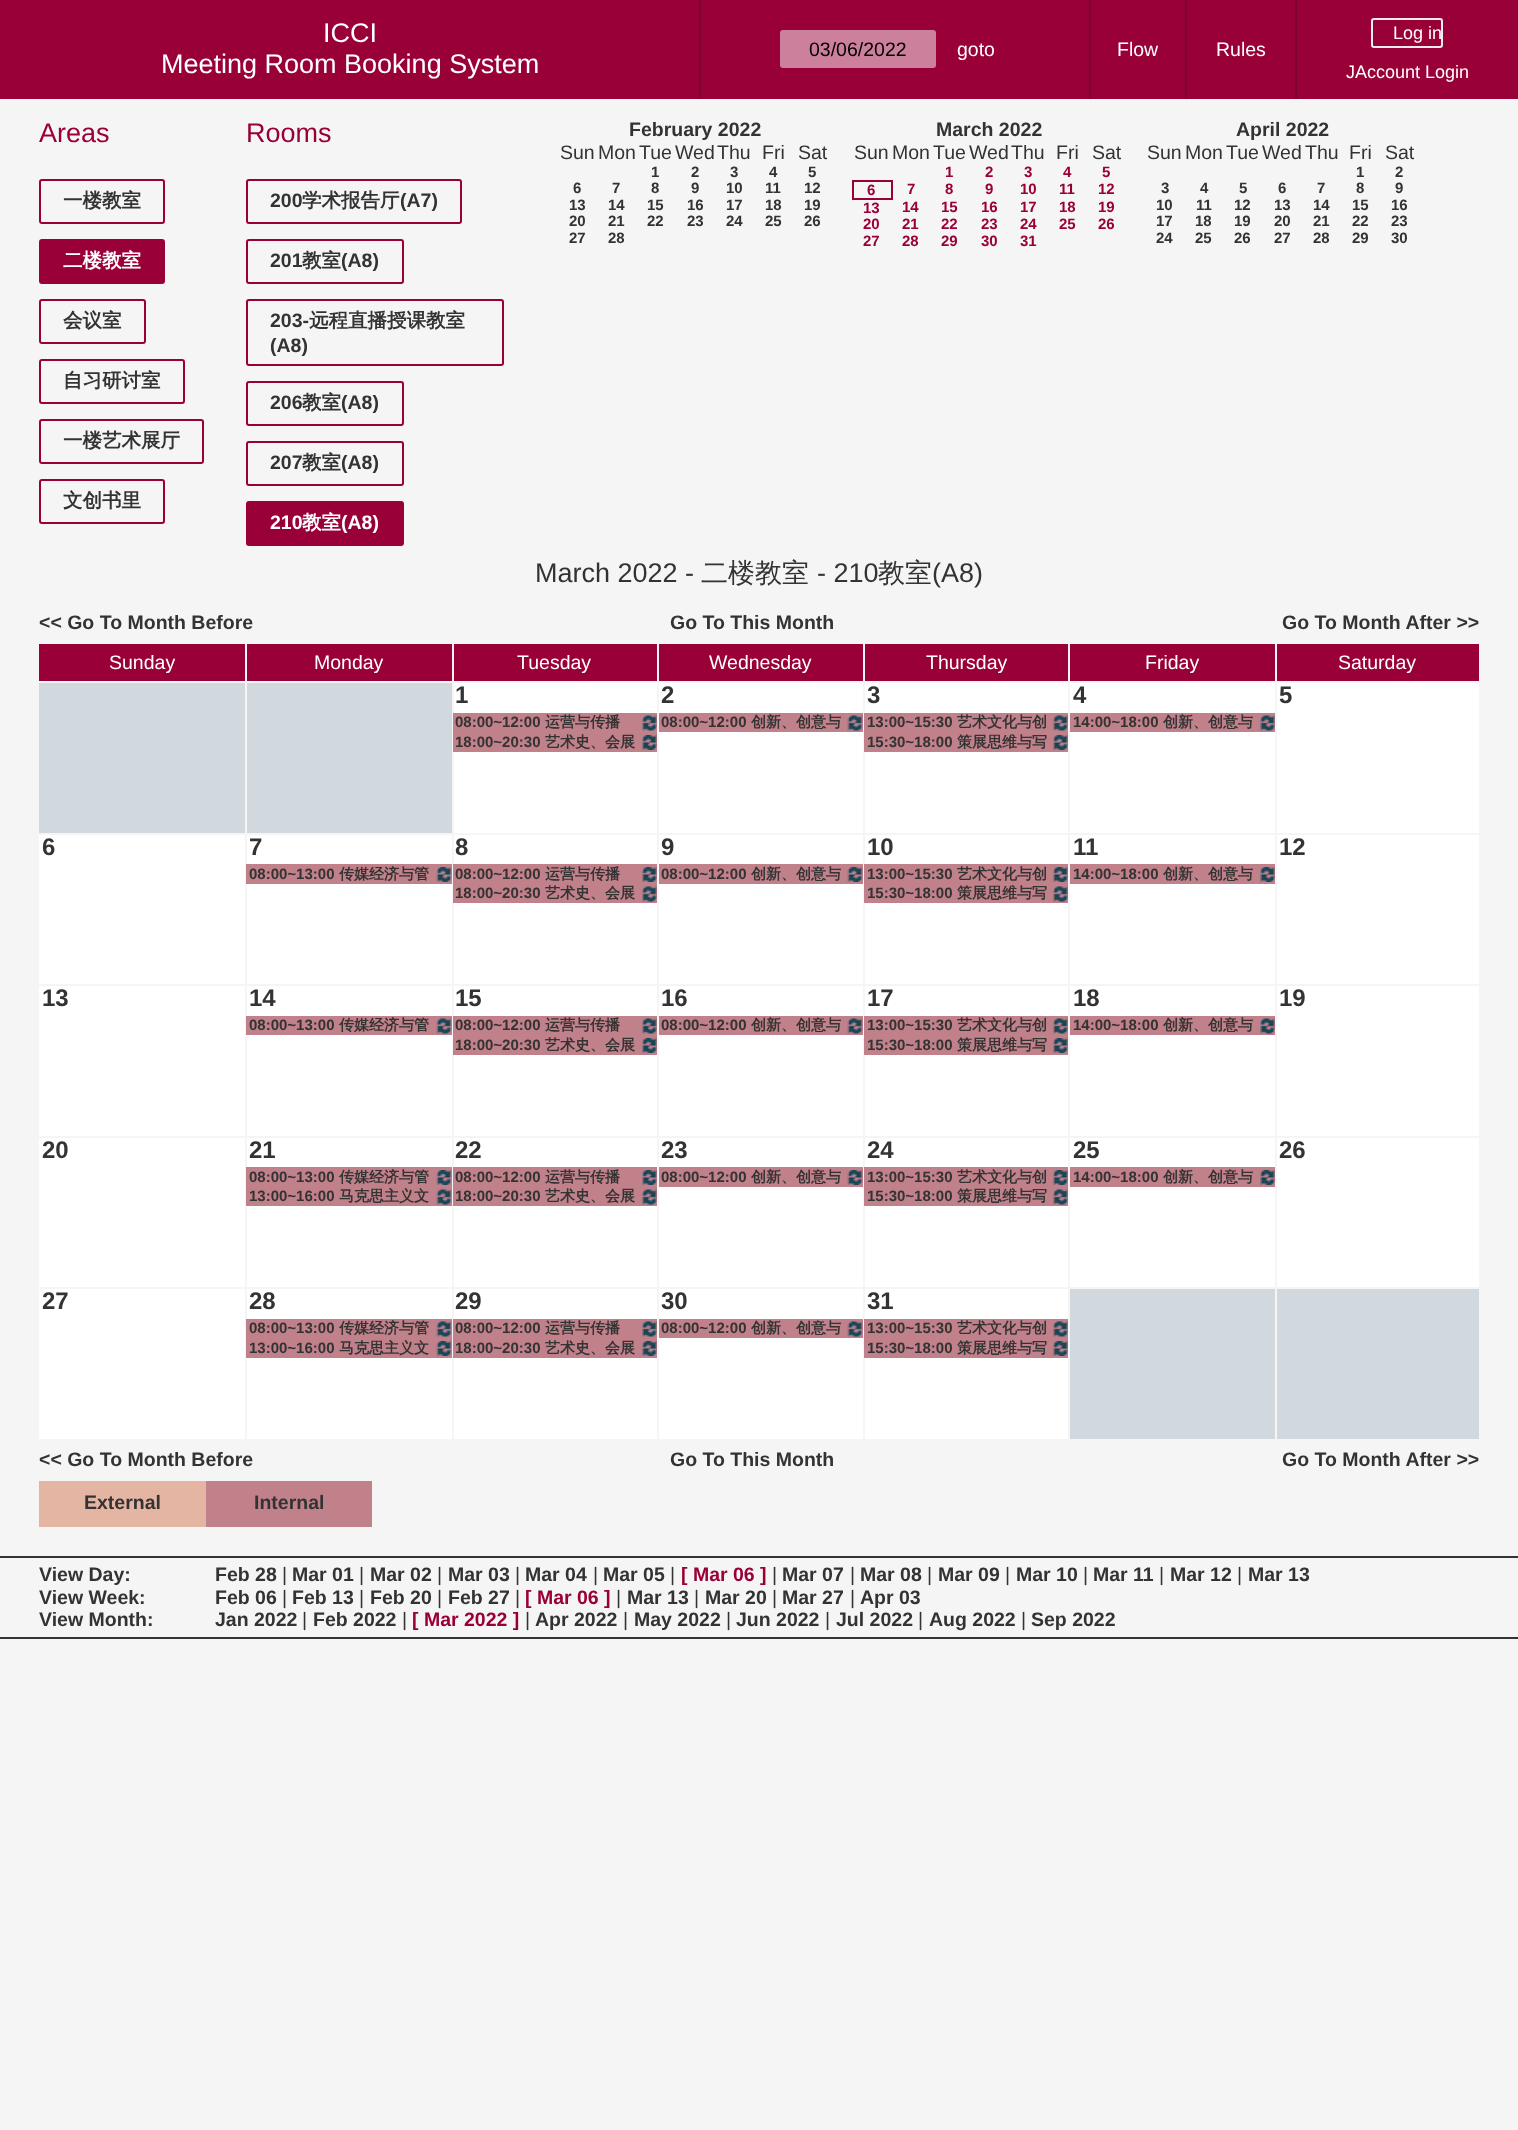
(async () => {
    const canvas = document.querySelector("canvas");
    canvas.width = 1518;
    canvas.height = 2130;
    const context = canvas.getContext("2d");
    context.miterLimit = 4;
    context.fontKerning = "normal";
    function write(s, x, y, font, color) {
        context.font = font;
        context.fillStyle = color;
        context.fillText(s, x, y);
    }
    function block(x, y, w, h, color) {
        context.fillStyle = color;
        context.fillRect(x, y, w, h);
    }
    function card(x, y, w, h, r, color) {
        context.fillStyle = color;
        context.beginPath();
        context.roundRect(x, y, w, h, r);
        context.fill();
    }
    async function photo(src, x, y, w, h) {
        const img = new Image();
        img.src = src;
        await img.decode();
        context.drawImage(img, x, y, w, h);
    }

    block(0, 0, 1518, 2130, "rgb(245, 245, 245)");
    block(0, 0, 1518, 99, "rgb(154, 0, 56)");
    write("ICCI", 323, 42, "27px Liberation Sans", "rgb(255, 255, 255)");
    write("Meeting Room Booking System", 161, 73, "27px Liberation Sans", "rgb(255, 255, 255)");
    block(699, 0, 2, 99, "rgb(126, 3, 49)");
    card(780, 30, 156, 38, 3, "rgb(205, 128, 156)");
    write("03/06/2022", 809, 56, "19.5px Liberation Sans", "rgb(0, 0, 0)");
    write("goto", 957, 56, "19.5px Liberation Sans", "rgb(255, 255, 255)");
    block(1089, 0, 2, 99, "rgb(126, 3, 49)");
    write("Flow", 1117, 56, "19.5px Liberation Sans", "rgb(255, 255, 255)");
    block(1185, 0, 2, 99, "rgb(126, 3, 49)");
    write("Rules", 1216, 56, "19.5px Liberation Sans", "rgb(255, 255, 255)");
    block(1295, 0, 2, 99, "rgb(126, 3, 49)");
    context.beginPath();
    context.roundRect(1372, 19, 70, 28, 2);
    context.strokeStyle = "rgb(238, 238, 238)";
    context.lineWidth = 2;
    context.stroke();
    write("Log in", 1393, 39, "18px Liberation Sans", "rgb(255, 255, 255)");
    write("JAccount Login", 1346, 78, "18px Liberation Sans", "rgb(255, 255, 255)");
    write("Areas", 39, 142, "27px Liberation Sans", "rgb(154, 0, 56)");
    context.beginPath();
    context.roundRect(40, 180, 124, 43, 2);
    context.strokeStyle = "rgb(154, 0, 56)";
    context.stroke();
    write("一楼教室", 63, 207, "bold 19.5px WenQuanYi Zen Hei", "rgb(51, 51, 51)");
    context.fillStyle = "rgb(154, 0, 56)";
    context.beginPath();
    context.roundRect(40, 240, 124, 43, 2);
    context.fill();
    context.stroke();
    write("二楼教室", 63, 267, "bold 19.5px WenQuanYi Zen Hei", "rgb(255, 255, 255)");
    context.beginPath();
    context.roundRect(40, 300, 105, 43, 2);
    context.stroke();
    write("会议室", 63, 327, "bold 19.5px WenQuanYi Zen Hei", "rgb(51, 51, 51)");
    context.beginPath();
    context.roundRect(40, 360, 144, 43, 2);
    context.stroke();
    write("自习研讨室", 63, 387, "bold 19.5px WenQuanYi Zen Hei", "rgb(51, 51, 51)");
    context.beginPath();
    context.roundRect(40, 420, 163, 43, 2);
    context.stroke();
    write("一楼艺术展厅", 63, 447, "bold 19.5px WenQuanYi Zen Hei", "rgb(51, 51, 51)");
    context.beginPath();
    context.roundRect(40, 480, 124, 43, 2);
    context.stroke();
    write("文创书里", 63, 507, "bold 19.5px WenQuanYi Zen Hei", "rgb(51, 51, 51)");
    write("Rooms", 246, 142, "27px Liberation Sans", "rgb(154, 0, 56)");
    context.beginPath();
    context.roundRect(247, 180, 214, 43, 2);
    context.stroke();
    write("200", 270, 207, "bold 19.5px Liberation Sans", "rgb(51, 51, 51)");
    write("学术报告厅", 302, 207, "bold 19.5px WenQuanYi Zen Hei", "rgb(51, 51, 51)");
    write("(A7)", 400, 207, "bold 19.5px Liberation Sans", "rgb(51, 51, 51)");
    context.beginPath();
    context.roundRect(247, 240, 156, 43, 2);
    context.stroke();
    write("201", 270, 267, "bold 19.5px Liberation Sans", "rgb(51, 51, 51)");
    write("教室", 302, 267, "bold 19.5px WenQuanYi Zen Hei", "rgb(51, 51, 51)");
    write("(A8)", 341, 267, "bold 19.5px Liberation Sans", "rgb(51, 51, 51)");
    context.beginPath();
    context.roundRect(247, 300, 256, 65, 2);
    context.stroke();
    write("203-", 270, 327, "bold 19.5px Liberation Sans", "rgb(51, 51, 51)");
    write("远程直播授课教室", 309, 327, "bold 19.5px WenQuanYi Zen Hei", "rgb(51, 51, 51)");
    write("(A8)", 270, 352, "bold 19.5px Liberation Sans", "rgb(51, 51, 51)");
    context.beginPath();
    context.roundRect(247, 382, 156, 43, 2);
    context.stroke();
    write("206", 270, 409, "bold 19.5px Liberation Sans", "rgb(51, 51, 51)");
    write("教室", 302, 409, "bold 19.5px WenQuanYi Zen Hei", "rgb(51, 51, 51)");
    write("(A8)", 341, 409, "bold 19.5px Liberation Sans", "rgb(51, 51, 51)");
    context.beginPath();
    context.roundRect(247, 442, 156, 43, 2);
    context.stroke();
    write("207", 270, 469, "bold 19.5px Liberation Sans", "rgb(51, 51, 51)");
    write("教室", 302, 469, "bold 19.5px WenQuanYi Zen Hei", "rgb(51, 51, 51)");
    write("(A8)", 341, 469, "bold 19.5px Liberation Sans", "rgb(51, 51, 51)");
    context.fillStyle = "rgb(154, 0, 56)";
    context.beginPath();
    context.roundRect(247, 502, 156, 43, 2);
    context.fill();
    context.stroke();
    write("210", 270, 529, "bold 19.5px Liberation Sans", "rgb(255, 255, 255)");
    write("教室", 302, 529, "bold 19.5px WenQuanYi Zen Hei", "rgb(255, 255, 255)");
    write("(A8)", 341, 529, "bold 19.5px Liberation Sans", "rgb(255, 255, 255)");
    write("February 2022", 629, 136, "bold 19.5px Liberation Sans", "rgb(51, 51, 51)");
    write("Sun", 560, 159, "19.5px Liberation Sans", "rgb(51, 51, 51)");
    write("Mon", 598, 159, "19.5px Liberation Sans", "rgb(51, 51, 51)");
    write("Tue", 639, 159, "19.5px Liberation Sans", "rgb(51, 51, 51)");
    write("Wed", 675, 159, "19.5px Liberation Sans", "rgb(51, 51, 51)");
    write("Thu", 717, 159, "19.5px Liberation Sans", "rgb(51, 51, 51)");
    write("Fri", 762, 159, "19.5px Liberation Sans", "rgb(51, 51, 51)");
    write("Sat", 798, 159, "19.5px Liberation Sans", "rgb(51, 51, 51)");
    write("1", 651, 177, "bold 15px Liberation Sans", "rgb(51, 51, 51)");
    write("2", 691, 177, "bold 15px Liberation Sans", "rgb(51, 51, 51)");
    write("3", 730, 177, "bold 15px Liberation Sans", "rgb(51, 51, 51)");
    write("4", 769, 177, "bold 15px Liberation Sans", "rgb(51, 51, 51)");
    write("5", 808, 177, "bold 15px Liberation Sans", "rgb(51, 51, 51)");
    write("6", 573, 193, "bold 15px Liberation Sans", "rgb(51, 51, 51)");
    write("7", 612, 193, "bold 15px Liberation Sans", "rgb(51, 51, 51)");
    write("8", 651, 193, "bold 15px Liberation Sans", "rgb(51, 51, 51)");
    write("9", 691, 193, "bold 15px Liberation Sans", "rgb(51, 51, 51)");
    write("10", 726, 193, "bold 15px Liberation Sans", "rgb(51, 51, 51)");
    write("11", 765, 193, "bold 15px Liberation Sans", "rgb(51, 51, 51)");
    write("12", 804, 193, "bold 15px Liberation Sans", "rgb(51, 51, 51)");
    write("13", 569, 210, "bold 15px Liberation Sans", "rgb(51, 51, 51)");
    write("14", 608, 210, "bold 15px Liberation Sans", "rgb(51, 51, 51)");
    write("15", 647, 210, "bold 15px Liberation Sans", "rgb(51, 51, 51)");
    write("16", 687, 210, "bold 15px Liberation Sans", "rgb(51, 51, 51)");
    write("17", 726, 210, "bold 15px Liberation Sans", "rgb(51, 51, 51)");
    write("18", 765, 210, "bold 15px Liberation Sans", "rgb(51, 51, 51)");
    write("19", 804, 210, "bold 15px Liberation Sans", "rgb(51, 51, 51)");
    write("20", 569, 226, "bold 15px Liberation Sans", "rgb(51, 51, 51)");
    write("21", 608, 226, "bold 15px Liberation Sans", "rgb(51, 51, 51)");
    write("22", 647, 226, "bold 15px Liberation Sans", "rgb(51, 51, 51)");
    write("23", 687, 226, "bold 15px Liberation Sans", "rgb(51, 51, 51)");
    write("24", 726, 226, "bold 15px Liberation Sans", "rgb(51, 51, 51)");
    write("25", 765, 226, "bold 15px Liberation Sans", "rgb(51, 51, 51)");
    write("26", 804, 226, "bold 15px Liberation Sans", "rgb(51, 51, 51)");
    write("27", 569, 243, "bold 15px Liberation Sans", "rgb(51, 51, 51)");
    write("28", 608, 243, "bold 15px Liberation Sans", "rgb(51, 51, 51)");
    write("March 2022", 936, 136, "bold 19.5px Liberation Sans", "rgb(51, 51, 51)");
    write("Sun", 854, 159, "19.5px Liberation Sans", "rgb(51, 51, 51)");
    write("Mon", 892, 159, "19.5px Liberation Sans", "rgb(51, 51, 51)");
    write("Tue", 933, 159, "19.5px Liberation Sans", "rgb(51, 51, 51)");
    write("Wed", 969, 159, "19.5px Liberation Sans", "rgb(51, 51, 51)");
    write("Thu", 1011, 159, "19.5px Liberation Sans", "rgb(51, 51, 51)");
    write("Fri", 1056, 159, "19.5px Liberation Sans", "rgb(51, 51, 51)");
    write("Sat", 1092, 159, "19.5px Liberation Sans", "rgb(51, 51, 51)");
    write("1", 945, 177, "bold 15px Liberation Sans", "rgb(154, 0, 56)");
    write("2", 985, 177, "bold 15px Liberation Sans", "rgb(154, 0, 56)");
    write("3", 1024, 177, "bold 15px Liberation Sans", "rgb(154, 0, 56)");
    write("4", 1063, 177, "bold 15px Liberation Sans", "rgb(154, 0, 56)");
    write("5", 1102, 177, "bold 15px Liberation Sans", "rgb(154, 0, 56)");
    block(852, 180, 41, 2, "rgb(154, 0, 56)");
    block(891, 180, 2, 20, "rgb(154, 0, 56)");
    block(852, 198, 41, 2, "rgb(154, 0, 56)");
    block(852, 180, 2, 20, "rgb(154, 0, 56)");
    write("6", 867, 195, "bold 15px Liberation Sans", "rgb(154, 0, 56)");
    write("7", 907, 194, "bold 15px Liberation Sans", "rgb(154, 0, 56)");
    write("8", 945, 194, "bold 15px Liberation Sans", "rgb(154, 0, 56)");
    write("9", 985, 194, "bold 15px Liberation Sans", "rgb(154, 0, 56)");
    write("10", 1020, 194, "bold 15px Liberation Sans", "rgb(154, 0, 56)");
    write("11", 1059, 194, "bold 15px Liberation Sans", "rgb(154, 0, 56)");
    write("12", 1098, 194, "bold 15px Liberation Sans", "rgb(154, 0, 56)");
    write("13", 863, 213, "bold 15px Liberation Sans", "rgb(154, 0, 56)");
    write("14", 902, 212, "bold 15px Liberation Sans", "rgb(154, 0, 56)");
    write("15", 941, 212, "bold 15px Liberation Sans", "rgb(154, 0, 56)");
    write("16", 981, 212, "bold 15px Liberation Sans", "rgb(154, 0, 56)");
    write("17", 1020, 212, "bold 15px Liberation Sans", "rgb(154, 0, 56)");
    write("18", 1059, 212, "bold 15px Liberation Sans", "rgb(154, 0, 56)");
    write("19", 1098, 212, "bold 15px Liberation Sans", "rgb(154, 0, 56)");
    write("20", 863, 229, "bold 15px Liberation Sans", "rgb(154, 0, 56)");
    write("21", 902, 229, "bold 15px Liberation Sans", "rgb(154, 0, 56)");
    write("22", 941, 229, "bold 15px Liberation Sans", "rgb(154, 0, 56)");
    write("23", 981, 229, "bold 15px Liberation Sans", "rgb(154, 0, 56)");
    write("24", 1020, 229, "bold 15px Liberation Sans", "rgb(154, 0, 56)");
    write("25", 1059, 229, "bold 15px Liberation Sans", "rgb(154, 0, 56)");
    write("26", 1098, 229, "bold 15px Liberation Sans", "rgb(154, 0, 56)");
    write("27", 863, 246, "bold 15px Liberation Sans", "rgb(154, 0, 56)");
    write("28", 902, 246, "bold 15px Liberation Sans", "rgb(154, 0, 56)");
    write("29", 941, 246, "bold 15px Liberation Sans", "rgb(154, 0, 56)");
    write("30", 981, 246, "bold 15px Liberation Sans", "rgb(154, 0, 56)");
    write("31", 1020, 246, "bold 15px Liberation Sans", "rgb(154, 0, 56)");
    write("April 2022", 1236, 136, "bold 19.5px Liberation Sans", "rgb(51, 51, 51)");
    write("Sun", 1147, 159, "19.5px Liberation Sans", "rgb(51, 51, 51)");
    write("Mon", 1185, 159, "19.5px Liberation Sans", "rgb(51, 51, 51)");
    write("Tue", 1226, 159, "19.5px Liberation Sans", "rgb(51, 51, 51)");
    write("Wed", 1262, 159, "19.5px Liberation Sans", "rgb(51, 51, 51)");
    write("Thu", 1305, 159, "19.5px Liberation Sans", "rgb(51, 51, 51)");
    write("Fri", 1349, 159, "19.5px Liberation Sans", "rgb(51, 51, 51)");
    write("Sat", 1385, 159, "19.5px Liberation Sans", "rgb(51, 51, 51)");
    write("1", 1356, 177, "bold 15px Liberation Sans", "rgb(51, 51, 51)");
    write("2", 1395, 177, "bold 15px Liberation Sans", "rgb(51, 51, 51)");
    write("3", 1161, 193, "bold 15px Liberation Sans", "rgb(51, 51, 51)");
    write("4", 1200, 193, "bold 15px Liberation Sans", "rgb(51, 51, 51)");
    write("5", 1239, 193, "bold 15px Liberation Sans", "rgb(51, 51, 51)");
    write("6", 1278, 193, "bold 15px Liberation Sans", "rgb(51, 51, 51)");
    write("7", 1317, 193, "bold 15px Liberation Sans", "rgb(51, 51, 51)");
    write("8", 1356, 193, "bold 15px Liberation Sans", "rgb(51, 51, 51)");
    write("9", 1395, 193, "bold 15px Liberation Sans", "rgb(51, 51, 51)");
    write("10", 1156, 210, "bold 15px Liberation Sans", "rgb(51, 51, 51)");
    write("11", 1196, 210, "bold 15px Liberation Sans", "rgb(51, 51, 51)");
    write("12", 1234, 210, "bold 15px Liberation Sans", "rgb(51, 51, 51)");
    write("13", 1274, 210, "bold 15px Liberation Sans", "rgb(51, 51, 51)");
    write("14", 1313, 210, "bold 15px Liberation Sans", "rgb(51, 51, 51)");
    write("15", 1352, 210, "bold 15px Liberation Sans", "rgb(51, 51, 51)");
    write("16", 1391, 210, "bold 15px Liberation Sans", "rgb(51, 51, 51)");
    write("17", 1156, 226, "bold 15px Liberation Sans", "rgb(51, 51, 51)");
    write("18", 1195, 226, "bold 15px Liberation Sans", "rgb(51, 51, 51)");
    write("19", 1234, 226, "bold 15px Liberation Sans", "rgb(51, 51, 51)");
    write("20", 1274, 226, "bold 15px Liberation Sans", "rgb(51, 51, 51)");
    write("21", 1313, 226, "bold 15px Liberation Sans", "rgb(51, 51, 51)");
    write("22", 1352, 226, "bold 15px Liberation Sans", "rgb(51, 51, 51)");
    write("23", 1391, 226, "bold 15px Liberation Sans", "rgb(51, 51, 51)");
    write("24", 1156, 243, "bold 15px Liberation Sans", "rgb(51, 51, 51)");
    write("25", 1195, 243, "bold 15px Liberation Sans", "rgb(51, 51, 51)");
    write("26", 1234, 243, "bold 15px Liberation Sans", "rgb(51, 51, 51)");
    write("27", 1274, 243, "bold 15px Liberation Sans", "rgb(51, 51, 51)");
    write("28", 1313, 243, "bold 15px Liberation Sans", "rgb(51, 51, 51)");
    write("29", 1352, 243, "bold 15px Liberation Sans", "rgb(51, 51, 51)");
    write("30", 1391, 243, "bold 15px Liberation Sans", "rgb(51, 51, 51)");
    write("March 2022 -", 535, 582, "27px Liberation Sans", "rgb(51, 51, 51)");
    write("二楼教室", 701, 582, "500 27px WenQuanYi Zen Hei", "rgb(51, 51, 51)");
    write("- 210", 817, 582, "27px Liberation Sans", "rgb(51, 51, 51)");
    write("教室", 878, 582, "500 27px WenQuanYi Zen Hei", "rgb(51, 51, 51)");
    write("(A8)", 932, 582, "27px Liberation Sans", "rgb(51, 51, 51)");
    write("<< Go To Month Before", 39, 629, "bold 19.5px Liberation Sans", "rgb(51, 51, 51)");
    write("Go To This Month", 670, 629, "bold 19.5px Liberation Sans", "rgb(51, 51, 51)");
    write("Go To Month After >>", 1282, 629, "bold 19.5px Liberation Sans", "rgb(51, 51, 51)");
    block(39, 644, 206, 37, "rgb(154, 0, 56)");
    write("Sunday", 109, 669, "19.5px Liberation Sans", "rgb(255, 255, 255)");
    block(247, 644, 205, 37, "rgb(154, 0, 56)");
    write("Monday", 314, 669, "19.5px Liberation Sans", "rgb(255, 255, 255)");
    block(454, 644, 203, 37, "rgb(154, 0, 56)");
    write("Tuesday", 517, 669, "19.5px Liberation Sans", "rgb(255, 255, 255)");
    block(659, 644, 204, 37, "rgb(154, 0, 56)");
    write("Wednesday", 709, 669, "19.5px Liberation Sans", "rgb(255, 255, 255)");
    block(865, 644, 203, 37, "rgb(154, 0, 56)");
    write("Thursday", 926, 669, "19.5px Liberation Sans", "rgb(255, 255, 255)");
    block(1070, 644, 205, 37, "rgb(154, 0, 56)");
    write("Friday", 1145, 669, "19.5px Liberation Sans", "rgb(255, 255, 255)");
    block(1277, 644, 202, 37, "rgb(154, 0, 56)");
    write("Saturday", 1338, 669, "19.5px Liberation Sans", "rgb(255, 255, 255)");
    block(39, 683, 206, 150, "rgb(209, 217, 222)");
    block(247, 683, 205, 150, "rgb(209, 217, 222)");
    block(454, 683, 203, 150, "rgb(255, 255, 255)");
    write("1", 455, 703, "bold 24px Liberation Sans", "rgb(51, 51, 51)");
    block(453, 713, 204, 39, "rgb(193, 129, 139)");
    write("08:00~12:00", 455, 727, "bold 15px Liberation Sans", "rgb(51, 51, 51)");
    write("运营与传播", 545, 727, "bold 15px WenQuanYi Zen Hei", "rgb(51, 51, 51)");
    await photo("media/1.png", 642, 715, 15, 16);
    write("18:00~20:30", 455, 747, "bold 15px Liberation Sans", "rgb(51, 51, 51)");
    write("艺术史、会展", 545, 747, "bold 15px WenQuanYi Zen Hei", "rgb(51, 51, 51)");
    await photo("media/2.png", 642, 735, 15, 15);
    block(659, 683, 204, 150, "rgb(255, 255, 255)");
    write("2", 661, 703, "bold 24px Liberation Sans", "rgb(51, 51, 51)");
    block(659, 713, 204, 19, "rgb(193, 129, 139)");
    write("08:00~12:00", 661, 727, "bold 15px Liberation Sans", "rgb(51, 51, 51)");
    write("创新、创意与", 751, 727, "bold 15px WenQuanYi Zen Hei", "rgb(51, 51, 51)");
    await photo("media/3.png", 847, 715, 16, 16);
    block(865, 683, 203, 150, "rgb(255, 255, 255)");
    write("3", 867, 703, "bold 24px Liberation Sans", "rgb(51, 51, 51)");
    block(864, 713, 204, 39, "rgb(193, 129, 139)");
    write("13:00~15:30", 867, 727, "bold 15px Liberation Sans", "rgb(51, 51, 51)");
    write("艺术文化与创", 957, 727, "bold 15px WenQuanYi Zen Hei", "rgb(51, 51, 51)");
    await photo("media/4.png", 1053, 715, 15, 16);
    write("15:30~18:00", 867, 747, "bold 15px Liberation Sans", "rgb(51, 51, 51)");
    write("策展思维与写", 957, 747, "bold 15px WenQuanYi Zen Hei", "rgb(51, 51, 51)");
    await photo("media/5.png", 1053, 735, 15, 15);
    block(1070, 683, 205, 150, "rgb(255, 255, 255)");
    write("4", 1073, 703, "bold 24px Liberation Sans", "rgb(51, 51, 51)");
    block(1070, 713, 205, 19, "rgb(193, 129, 139)");
    write("14:00~18:00", 1073, 727, "bold 15px Liberation Sans", "rgb(51, 51, 51)");
    write("创新、创意与", 1163, 727, "bold 15px WenQuanYi Zen Hei", "rgb(51, 51, 51)");
    await photo("media/6.png", 1260, 715, 15, 16);
    block(1277, 683, 202, 150, "rgb(255, 255, 255)");
    write("5", 1279, 703, "bold 24px Liberation Sans", "rgb(51, 51, 51)");
    block(39, 835, 206, 149, "rgb(255, 255, 255)");
    write("6", 42, 855, "bold 24px Liberation Sans", "rgb(51, 51, 51)");
    block(247, 835, 205, 149, "rgb(255, 255, 255)");
    write("7", 249, 855, "bold 24px Liberation Sans", "rgb(51, 51, 51)");
    block(246, 864, 206, 20, "rgb(193, 129, 139)");
    write("08:00~13:00", 249, 879, "bold 15px Liberation Sans", "rgb(51, 51, 51)");
    write("传媒经济与管", 339, 879, "bold 15px WenQuanYi Zen Hei", "rgb(51, 51, 51)");
    await photo("media/7.png", 436, 867, 16, 15);
    block(454, 835, 203, 149, "rgb(255, 255, 255)");
    write("8", 455, 855, "bold 24px Liberation Sans", "rgb(51, 51, 51)");
    block(453, 864, 204, 39, "rgb(193, 129, 139)");
    write("08:00~12:00", 455, 879, "bold 15px Liberation Sans", "rgb(51, 51, 51)");
    write("运营与传播", 545, 879, "bold 15px WenQuanYi Zen Hei", "rgb(51, 51, 51)");
    await photo("media/2.png", 642, 867, 15, 15);
    write("18:00~20:30", 455, 898, "bold 15px Liberation Sans", "rgb(51, 51, 51)");
    write("艺术史、会展", 545, 898, "bold 15px WenQuanYi Zen Hei", "rgb(51, 51, 51)");
    await photo("media/1.png", 642, 886, 15, 16);
    block(659, 835, 204, 149, "rgb(255, 255, 255)");
    write("9", 661, 855, "bold 24px Liberation Sans", "rgb(51, 51, 51)");
    block(659, 864, 204, 20, "rgb(193, 129, 139)");
    write("08:00~12:00", 661, 879, "bold 15px Liberation Sans", "rgb(51, 51, 51)");
    write("创新、创意与", 751, 879, "bold 15px WenQuanYi Zen Hei", "rgb(51, 51, 51)");
    await photo("media/8.png", 847, 867, 16, 15);
    block(865, 835, 203, 149, "rgb(255, 255, 255)");
    write("10", 867, 855, "bold 24px Liberation Sans", "rgb(51, 51, 51)");
    block(864, 864, 204, 39, "rgb(193, 129, 139)");
    write("13:00~15:30", 867, 879, "bold 15px Liberation Sans", "rgb(51, 51, 51)");
    write("艺术文化与创", 957, 879, "bold 15px WenQuanYi Zen Hei", "rgb(51, 51, 51)");
    await photo("media/5.png", 1053, 867, 15, 15);
    write("15:30~18:00", 867, 898, "bold 15px Liberation Sans", "rgb(51, 51, 51)");
    write("策展思维与写", 957, 898, "bold 15px WenQuanYi Zen Hei", "rgb(51, 51, 51)");
    await photo("media/4.png", 1053, 886, 15, 16);
    block(1070, 835, 205, 149, "rgb(255, 255, 255)");
    write("11", 1073, 855, "bold 24px Liberation Sans", "rgb(51, 51, 51)");
    block(1070, 864, 205, 20, "rgb(193, 129, 139)");
    write("14:00~18:00", 1073, 879, "bold 15px Liberation Sans", "rgb(51, 51, 51)");
    write("创新、创意与", 1163, 879, "bold 15px WenQuanYi Zen Hei", "rgb(51, 51, 51)");
    await photo("media/9.png", 1260, 867, 15, 15);
    block(1277, 835, 202, 149, "rgb(255, 255, 255)");
    write("12", 1279, 855, "bold 24px Liberation Sans", "rgb(51, 51, 51)");
    block(39, 986, 206, 150, "rgb(255, 255, 255)");
    write("13", 42, 1006, "bold 24px Liberation Sans", "rgb(51, 51, 51)");
    block(247, 986, 205, 150, "rgb(255, 255, 255)");
    write("14", 249, 1006, "bold 24px Liberation Sans", "rgb(51, 51, 51)");
    block(246, 1016, 206, 19, "rgb(193, 129, 139)");
    write("08:00~13:00", 249, 1030, "bold 15px Liberation Sans", "rgb(51, 51, 51)");
    write("传媒经济与管", 339, 1030, "bold 15px WenQuanYi Zen Hei", "rgb(51, 51, 51)");
    await photo("media/10.png", 436, 1018, 16, 16);
    block(454, 986, 203, 150, "rgb(255, 255, 255)");
    write("15", 455, 1006, "bold 24px Liberation Sans", "rgb(51, 51, 51)");
    block(453, 1016, 204, 39, "rgb(193, 129, 139)");
    write("08:00~12:00", 455, 1030, "bold 15px Liberation Sans", "rgb(51, 51, 51)");
    write("运营与传播", 545, 1030, "bold 15px WenQuanYi Zen Hei", "rgb(51, 51, 51)");
    await photo("media/1.png", 642, 1018, 15, 16);
    write("18:00~20:30", 455, 1050, "bold 15px Liberation Sans", "rgb(51, 51, 51)");
    write("艺术史、会展", 545, 1050, "bold 15px WenQuanYi Zen Hei", "rgb(51, 51, 51)");
    await photo("media/2.png", 642, 1038, 15, 15);
    block(659, 986, 204, 150, "rgb(255, 255, 255)");
    write("16", 661, 1006, "bold 24px Liberation Sans", "rgb(51, 51, 51)");
    block(659, 1016, 204, 19, "rgb(193, 129, 139)");
    write("08:00~12:00", 661, 1030, "bold 15px Liberation Sans", "rgb(51, 51, 51)");
    write("创新、创意与", 751, 1030, "bold 15px WenQuanYi Zen Hei", "rgb(51, 51, 51)");
    await photo("media/3.png", 847, 1018, 16, 16);
    block(865, 986, 203, 150, "rgb(255, 255, 255)");
    write("17", 867, 1006, "bold 24px Liberation Sans", "rgb(51, 51, 51)");
    block(864, 1016, 204, 39, "rgb(193, 129, 139)");
    write("13:00~15:30", 867, 1030, "bold 15px Liberation Sans", "rgb(51, 51, 51)");
    write("艺术文化与创", 957, 1030, "bold 15px WenQuanYi Zen Hei", "rgb(51, 51, 51)");
    await photo("media/4.png", 1053, 1018, 15, 16);
    write("15:30~18:00", 867, 1050, "bold 15px Liberation Sans", "rgb(51, 51, 51)");
    write("策展思维与写", 957, 1050, "bold 15px WenQuanYi Zen Hei", "rgb(51, 51, 51)");
    await photo("media/5.png", 1053, 1038, 15, 15);
    block(1070, 986, 205, 150, "rgb(255, 255, 255)");
    write("18", 1073, 1006, "bold 24px Liberation Sans", "rgb(51, 51, 51)");
    block(1070, 1016, 205, 19, "rgb(193, 129, 139)");
    write("14:00~18:00", 1073, 1030, "bold 15px Liberation Sans", "rgb(51, 51, 51)");
    write("创新、创意与", 1163, 1030, "bold 15px WenQuanYi Zen Hei", "rgb(51, 51, 51)");
    await photo("media/6.png", 1260, 1018, 15, 16);
    block(1277, 986, 202, 150, "rgb(255, 255, 255)");
    write("19", 1279, 1006, "bold 24px Liberation Sans", "rgb(51, 51, 51)");
    block(39, 1138, 206, 149, "rgb(255, 255, 255)");
    write("20", 42, 1158, "bold 24px Liberation Sans", "rgb(51, 51, 51)");
    block(247, 1138, 205, 149, "rgb(255, 255, 255)");
    write("21", 249, 1158, "bold 24px Liberation Sans", "rgb(51, 51, 51)");
    block(246, 1167, 206, 39, "rgb(193, 129, 139)");
    write("08:00~13:00", 249, 1182, "bold 15px Liberation Sans", "rgb(51, 51, 51)");
    write("传媒经济与管", 339, 1182, "bold 15px WenQuanYi Zen Hei", "rgb(51, 51, 51)");
    await photo("media/7.png", 436, 1170, 16, 15);
    write("13:00~16:00", 249, 1201, "bold 15px Liberation Sans", "rgb(51, 51, 51)");
    write("马克思主义文", 339, 1201, "bold 15px WenQuanYi Zen Hei", "rgb(51, 51, 51)");
    await photo("media/10.png", 436, 1189, 16, 16);
    block(454, 1138, 203, 149, "rgb(255, 255, 255)");
    write("22", 455, 1158, "bold 24px Liberation Sans", "rgb(51, 51, 51)");
    block(453, 1167, 204, 39, "rgb(193, 129, 139)");
    write("08:00~12:00", 455, 1182, "bold 15px Liberation Sans", "rgb(51, 51, 51)");
    write("运营与传播", 545, 1182, "bold 15px WenQuanYi Zen Hei", "rgb(51, 51, 51)");
    await photo("media/2.png", 642, 1170, 15, 15);
    write("18:00~20:30", 455, 1201, "bold 15px Liberation Sans", "rgb(51, 51, 51)");
    write("艺术史、会展", 545, 1201, "bold 15px WenQuanYi Zen Hei", "rgb(51, 51, 51)");
    await photo("media/1.png", 642, 1189, 15, 16);
    block(659, 1138, 204, 149, "rgb(255, 255, 255)");
    write("23", 661, 1158, "bold 24px Liberation Sans", "rgb(51, 51, 51)");
    block(659, 1167, 204, 20, "rgb(193, 129, 139)");
    write("08:00~12:00", 661, 1182, "bold 15px Liberation Sans", "rgb(51, 51, 51)");
    write("创新、创意与", 751, 1182, "bold 15px WenQuanYi Zen Hei", "rgb(51, 51, 51)");
    await photo("media/8.png", 847, 1170, 16, 15);
    block(865, 1138, 203, 149, "rgb(255, 255, 255)");
    write("24", 867, 1158, "bold 24px Liberation Sans", "rgb(51, 51, 51)");
    block(864, 1167, 204, 39, "rgb(193, 129, 139)");
    write("13:00~15:30", 867, 1182, "bold 15px Liberation Sans", "rgb(51, 51, 51)");
    write("艺术文化与创", 957, 1182, "bold 15px WenQuanYi Zen Hei", "rgb(51, 51, 51)");
    await photo("media/5.png", 1053, 1170, 15, 15);
    write("15:30~18:00", 867, 1201, "bold 15px Liberation Sans", "rgb(51, 51, 51)");
    write("策展思维与写", 957, 1201, "bold 15px WenQuanYi Zen Hei", "rgb(51, 51, 51)");
    await photo("media/4.png", 1053, 1189, 15, 16);
    block(1070, 1138, 205, 149, "rgb(255, 255, 255)");
    write("25", 1073, 1158, "bold 24px Liberation Sans", "rgb(51, 51, 51)");
    block(1070, 1167, 205, 20, "rgb(193, 129, 139)");
    write("14:00~18:00", 1073, 1182, "bold 15px Liberation Sans", "rgb(51, 51, 51)");
    write("创新、创意与", 1163, 1182, "bold 15px WenQuanYi Zen Hei", "rgb(51, 51, 51)");
    await photo("media/9.png", 1260, 1170, 15, 15);
    block(1277, 1138, 202, 149, "rgb(255, 255, 255)");
    write("26", 1279, 1158, "bold 24px Liberation Sans", "rgb(51, 51, 51)");
    block(39, 1289, 206, 150, "rgb(255, 255, 255)");
    write("27", 42, 1309, "bold 24px Liberation Sans", "rgb(51, 51, 51)");
    block(247, 1289, 205, 150, "rgb(255, 255, 255)");
    write("28", 249, 1309, "bold 24px Liberation Sans", "rgb(51, 51, 51)");
    block(246, 1319, 206, 39, "rgb(193, 129, 139)");
    write("08:00~13:00", 249, 1333, "bold 15px Liberation Sans", "rgb(51, 51, 51)");
    write("传媒经济与管", 339, 1333, "bold 15px WenQuanYi Zen Hei", "rgb(51, 51, 51)");
    await photo("media/10.png", 436, 1321, 16, 16);
    write("13:00~16:00", 249, 1353, "bold 15px Liberation Sans", "rgb(51, 51, 51)");
    write("马克思主义文", 339, 1353, "bold 15px WenQuanYi Zen Hei", "rgb(51, 51, 51)");
    await photo("media/7.png", 436, 1341, 16, 15);
    block(454, 1289, 203, 150, "rgb(255, 255, 255)");
    write("29", 455, 1309, "bold 24px Liberation Sans", "rgb(51, 51, 51)");
    block(453, 1319, 204, 39, "rgb(193, 129, 139)");
    write("08:00~12:00", 455, 1333, "bold 15px Liberation Sans", "rgb(51, 51, 51)");
    write("运营与传播", 545, 1333, "bold 15px WenQuanYi Zen Hei", "rgb(51, 51, 51)");
    await photo("media/1.png", 642, 1321, 15, 16);
    write("18:00~20:30", 455, 1353, "bold 15px Liberation Sans", "rgb(51, 51, 51)");
    write("艺术史、会展", 545, 1353, "bold 15px WenQuanYi Zen Hei", "rgb(51, 51, 51)");
    await photo("media/2.png", 642, 1341, 15, 15);
    block(659, 1289, 204, 150, "rgb(255, 255, 255)");
    write("30", 661, 1309, "bold 24px Liberation Sans", "rgb(51, 51, 51)");
    block(659, 1319, 204, 19, "rgb(193, 129, 139)");
    write("08:00~12:00", 661, 1333, "bold 15px Liberation Sans", "rgb(51, 51, 51)");
    write("创新、创意与", 751, 1333, "bold 15px WenQuanYi Zen Hei", "rgb(51, 51, 51)");
    await photo("media/3.png", 847, 1321, 16, 16);
    block(865, 1289, 203, 150, "rgb(255, 255, 255)");
    write("31", 867, 1309, "bold 24px Liberation Sans", "rgb(51, 51, 51)");
    block(864, 1319, 204, 39, "rgb(193, 129, 139)");
    write("13:00~15:30", 867, 1333, "bold 15px Liberation Sans", "rgb(51, 51, 51)");
    write("艺术文化与创", 957, 1333, "bold 15px WenQuanYi Zen Hei", "rgb(51, 51, 51)");
    await photo("media/4.png", 1053, 1321, 15, 16);
    write("15:30~18:00", 867, 1353, "bold 15px Liberation Sans", "rgb(51, 51, 51)");
    write("策展思维与写", 957, 1353, "bold 15px WenQuanYi Zen Hei", "rgb(51, 51, 51)");
    await photo("media/5.png", 1053, 1341, 15, 15);
    block(1070, 1289, 205, 150, "rgb(209, 217, 222)");
    block(1277, 1289, 202, 150, "rgb(209, 217, 222)");
    write("<< Go To Month Before", 39, 1466, "bold 19.5px Liberation Sans", "rgb(51, 51, 51)");
    write("Go To This Month", 670, 1466, "bold 19.5px Liberation Sans", "rgb(51, 51, 51)");
    write("Go To Month After >>", 1282, 1466, "bold 19.5px Liberation Sans", "rgb(51, 51, 51)");
    block(39, 1481, 167, 46, "rgb(229, 181, 163)");
    write("External", 84, 1509, "bold 19.5px Liberation Sans", "rgb(51, 51, 51)");
    block(206, 1481, 166, 46, "rgb(193, 129, 139)");
    write("Internal", 254, 1509, "bold 19.5px Liberation Sans", "rgb(51, 51, 51)");
    block(0, 1556, 1518, 2, "rgb(51, 51, 51)");
    block(0, 1637, 1518, 2, "rgb(51, 51, 51)");
    write("View Day:", 39, 1581, "bold 19.5px Liberation Sans", "rgb(51, 51, 51)");
    write("Feb 28", 215, 1581, "bold 19.5px Liberation Sans", "rgb(51, 51, 51)");
    write("|", 282, 1581, "19.5px Liberation Sans", "rgb(51, 51, 51)");
    write("Mar 01", 292, 1581, "bold 19.5px Liberation Sans", "rgb(51, 51, 51)");
    write("|", 359, 1581, "19.5px Liberation Sans", "rgb(51, 51, 51)");
    write("Mar 02", 370, 1581, "bold 19.5px Liberation Sans", "rgb(51, 51, 51)");
    write("|", 437, 1581, "19.5px Liberation Sans", "rgb(51, 51, 51)");
    write("Mar 03", 448, 1581, "bold 19.5px Liberation Sans", "rgb(51, 51, 51)");
    write("|", 515, 1581, "19.5px Liberation Sans", "rgb(51, 51, 51)");
    write("Mar 04", 525, 1581, "bold 19.5px Liberation Sans", "rgb(51, 51, 51)");
    write("|", 593, 1581, "19.5px Liberation Sans", "rgb(51, 51, 51)");
    write("Mar 05", 603, 1581, "bold 19.5px Liberation Sans", "rgb(51, 51, 51)");
    write("|", 670, 1581, "19.5px Liberation Sans", "rgb(51, 51, 51)");
    write("[ Mar 06 ]", 681, 1581, "bold 19.5px Liberation Sans", "rgb(154, 0, 56)");
    write("|", 772, 1581, "19.5px Liberation Sans", "rgb(51, 51, 51)");
    write("Mar 07", 782, 1581, "bold 19.5px Liberation Sans", "rgb(51, 51, 51)");
    write("|", 850, 1581, "19.5px Liberation Sans", "rgb(51, 51, 51)");
    write("Mar 08", 860, 1581, "bold 19.5px Liberation Sans", "rgb(51, 51, 51)");
    write("|", 927, 1581, "19.5px Liberation Sans", "rgb(51, 51, 51)");
    write("Mar 09", 938, 1581, "bold 19.5px Liberation Sans", "rgb(51, 51, 51)");
    write("|", 1005, 1581, "19.5px Liberation Sans", "rgb(51, 51, 51)");
    write("Mar 10", 1016, 1581, "bold 19.5px Liberation Sans", "rgb(51, 51, 51)");
    write("|", 1083, 1581, "19.5px Liberation Sans", "rgb(51, 51, 51)");
    write("Mar 11", 1093, 1581, "bold 19.5px Liberation Sans", "rgb(51, 51, 51)");
    write("|", 1159, 1581, "19.5px Liberation Sans", "rgb(51, 51, 51)");
    write("Mar 12", 1170, 1581, "bold 19.5px Liberation Sans", "rgb(51, 51, 51)");
    write("|", 1237, 1581, "19.5px Liberation Sans", "rgb(51, 51, 51)");
    write("Mar 13", 1248, 1581, "bold 19.5px Liberation Sans", "rgb(51, 51, 51)");
    write("View Week:", 39, 1604, "bold 19.5px Liberation Sans", "rgb(51, 51, 51)");
    write("Feb 06", 215, 1604, "bold 19.5px Liberation Sans", "rgb(51, 51, 51)");
    write("|", 282, 1604, "19.5px Liberation Sans", "rgb(51, 51, 51)");
    write("Feb 13", 292, 1604, "bold 19.5px Liberation Sans", "rgb(51, 51, 51)");
    write("|", 359, 1604, "19.5px Liberation Sans", "rgb(51, 51, 51)");
    write("Feb 20", 370, 1604, "bold 19.5px Liberation Sans", "rgb(51, 51, 51)");
    write("|", 437, 1604, "19.5px Liberation Sans", "rgb(51, 51, 51)");
    write("Feb 27", 448, 1604, "bold 19.5px Liberation Sans", "rgb(51, 51, 51)");
    write("|", 515, 1604, "19.5px Liberation Sans", "rgb(51, 51, 51)");
    write("[ Mar 06 ]", 525, 1604, "bold 19.5px Liberation Sans", "rgb(154, 0, 56)");
    write("|", 616, 1604, "19.5px Liberation Sans", "rgb(51, 51, 51)");
    write("Mar 13", 627, 1604, "bold 19.5px Liberation Sans", "rgb(51, 51, 51)");
    write("|", 694, 1604, "19.5px Liberation Sans", "rgb(51, 51, 51)");
    write("Mar 20", 705, 1604, "bold 19.5px Liberation Sans", "rgb(51, 51, 51)");
    write("|", 772, 1604, "19.5px Liberation Sans", "rgb(51, 51, 51)");
    write("Mar 27", 782, 1604, "bold 19.5px Liberation Sans", "rgb(51, 51, 51)");
    write("|", 850, 1604, "19.5px Liberation Sans", "rgb(51, 51, 51)");
    write("Apr 03", 860, 1604, "bold 19.5px Liberation Sans", "rgb(51, 51, 51)");
    write("View Month:", 39, 1626, "bold 19.5px Liberation Sans", "rgb(51, 51, 51)");
    write("Jan 2022", 215, 1626, "bold 19.5px Liberation Sans", "rgb(51, 51, 51)");
    write("|", 302, 1626, "19.5px Liberation Sans", "rgb(51, 51, 51)");
    write("Feb 2022", 313, 1626, "bold 19.5px Liberation Sans", "rgb(51, 51, 51)");
    write("|", 402, 1626, "19.5px Liberation Sans", "rgb(51, 51, 51)");
    write("[ Mar 2022 ]", 412, 1626, "bold 19.5px Liberation Sans", "rgb(154, 0, 56)");
    write("|", 525, 1626, "19.5px Liberation Sans", "rgb(51, 51, 51)");
    write("Apr 2022", 535, 1626, "bold 19.5px Liberation Sans", "rgb(51, 51, 51)");
    write("|", 623, 1626, "19.5px Liberation Sans", "rgb(51, 51, 51)");
    write("May 2022", 634, 1626, "bold 19.5px Liberation Sans", "rgb(51, 51, 51)");
    write("|", 726, 1626, "19.5px Liberation Sans", "rgb(51, 51, 51)");
    write("Jun 2022", 736, 1626, "bold 19.5px Liberation Sans", "rgb(51, 51, 51)");
    write("|", 825, 1626, "19.5px Liberation Sans", "rgb(51, 51, 51)");
    write("Jul 2022", 836, 1626, "bold 19.5px Liberation Sans", "rgb(51, 51, 51)");
    write("|", 918, 1626, "19.5px Liberation Sans", "rgb(51, 51, 51)");
    write("Aug 2022", 929, 1626, "bold 19.5px Liberation Sans", "rgb(51, 51, 51)");
    write("|", 1021, 1626, "19.5px Liberation Sans", "rgb(51, 51, 51)");
    write("Sep 2022", 1031, 1626, "bold 19.5px Liberation Sans", "rgb(51, 51, 51)");
})();
